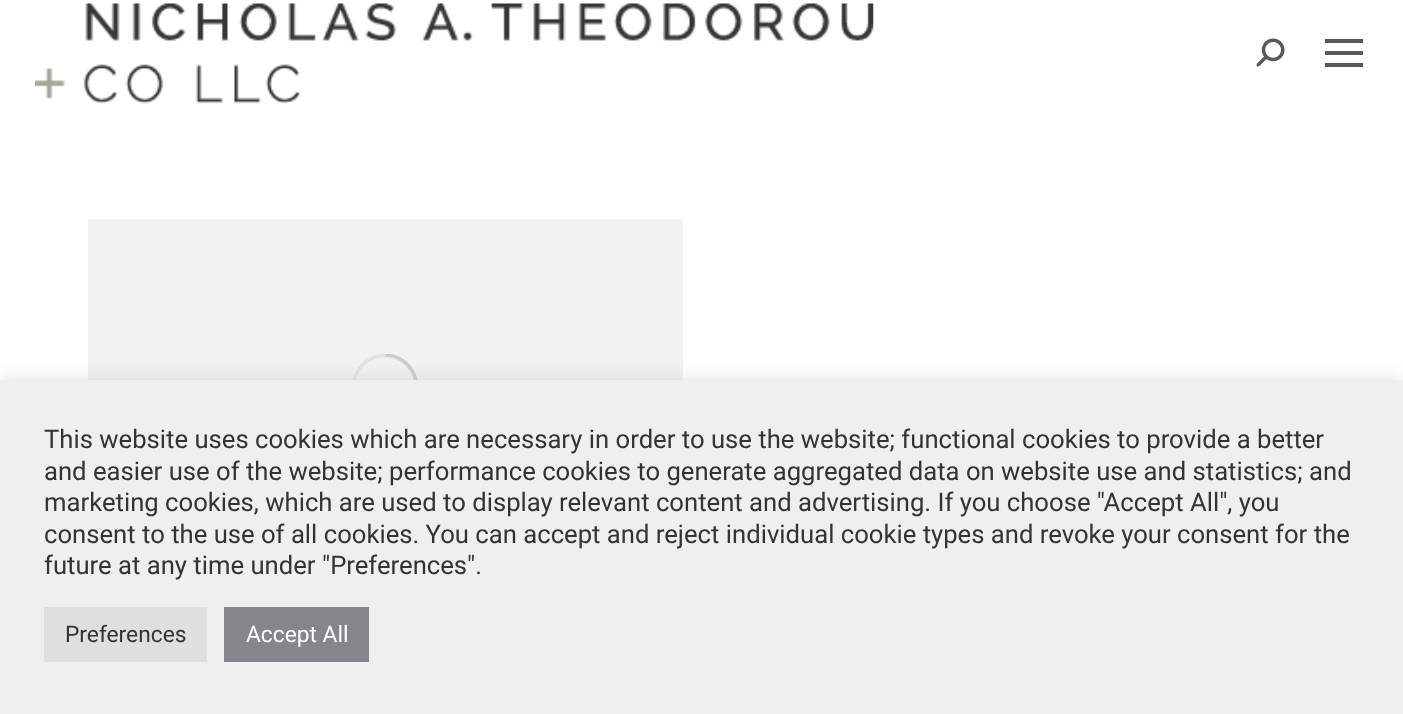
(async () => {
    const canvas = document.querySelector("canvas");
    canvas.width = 1403;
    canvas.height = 714;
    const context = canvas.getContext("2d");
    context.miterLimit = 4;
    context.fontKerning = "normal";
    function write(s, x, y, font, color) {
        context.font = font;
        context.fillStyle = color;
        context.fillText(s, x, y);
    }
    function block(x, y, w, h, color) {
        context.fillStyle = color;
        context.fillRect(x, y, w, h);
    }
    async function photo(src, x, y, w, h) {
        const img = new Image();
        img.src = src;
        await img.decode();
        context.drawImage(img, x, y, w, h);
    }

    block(0, 0, 1403, 714, "rgb(255, 255, 255)");
    await photo("media/1.png", 35, 3, 839, 101);
    await photo("media/2.png", 1256, 38, 29, 29);
    block(1325, 39, 38, 4, "rgb(88, 89, 91)");
    block(1325, 51, 38, 4, "rgb(88, 89, 91)");
    block(1325, 63, 38, 4, "rgb(88, 89, 91)");
    block(88, 219, 595, 161, "rgb(242, 242, 242)");
    context.save();
    context.beginPath();
    context.rect(352, 354, 66, 66);
    context.clip();
    context.beginPath();
    context.arc(385, 387, 31.5, 0, Math.PI * 2);
    context.strokeStyle = "rgb(227, 227, 228)";
    context.lineWidth = 3.5;
    context.stroke();
    context.beginPath();
    context.moveTo(416.5, 387);
    context.bezierCurveTo(416.5, 369.5, 402.5, 355, 385, 355);
    context.strokeStyle = "rgba(133, 134, 140, 0.25)";
    context.stroke();
    context.restore();
    context.fillStyle = "rgba(172, 171, 171, 0.3)";
    context.filter = "blur(9px)";
    context.beginPath();
    context.rect(0, 378, 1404, 334);
    context.fill();
    context.filter = "none";
    block(0, 380, 1403, 334, "rgb(239, 239, 239)");
    write("This website uses cookies which are necessary in order to use the website; functional cookies to provide a better", 44, 448, "25.67px Roboto", "rgb(51, 51, 51)");
    write("and easier use of the website; performance cookies to generate aggregated data on website use and statistics; and", 44, 480, "25.67px Roboto", "rgb(51, 51, 51)");
    write("marketing cookies, which are used to display relevant content and advertising. If you choose \"Accept All\", you", 44, 511, "25.67px Roboto", "rgb(51, 51, 51)");
    write("consent to the use of all cookies. You can accept and reject individual cookie types and revoke your consent for the", 44, 543, "25.67px Roboto", "rgb(51, 51, 51)");
    write("future at any time under \"Preferences\".", 44, 574, "25.67px Roboto", "rgb(51, 51, 51)");
    block(44, 607, 163, 55, "rgb(222, 223, 224)");
    write("Preferences", 65, 642, "22.75px Roboto", "rgb(51, 51, 51)");
    block(224, 607, 145, 55, "rgb(133, 134, 140)");
    write("Accept All", 246, 642, "22.75px Roboto", "rgb(255, 255, 255)");
})();
